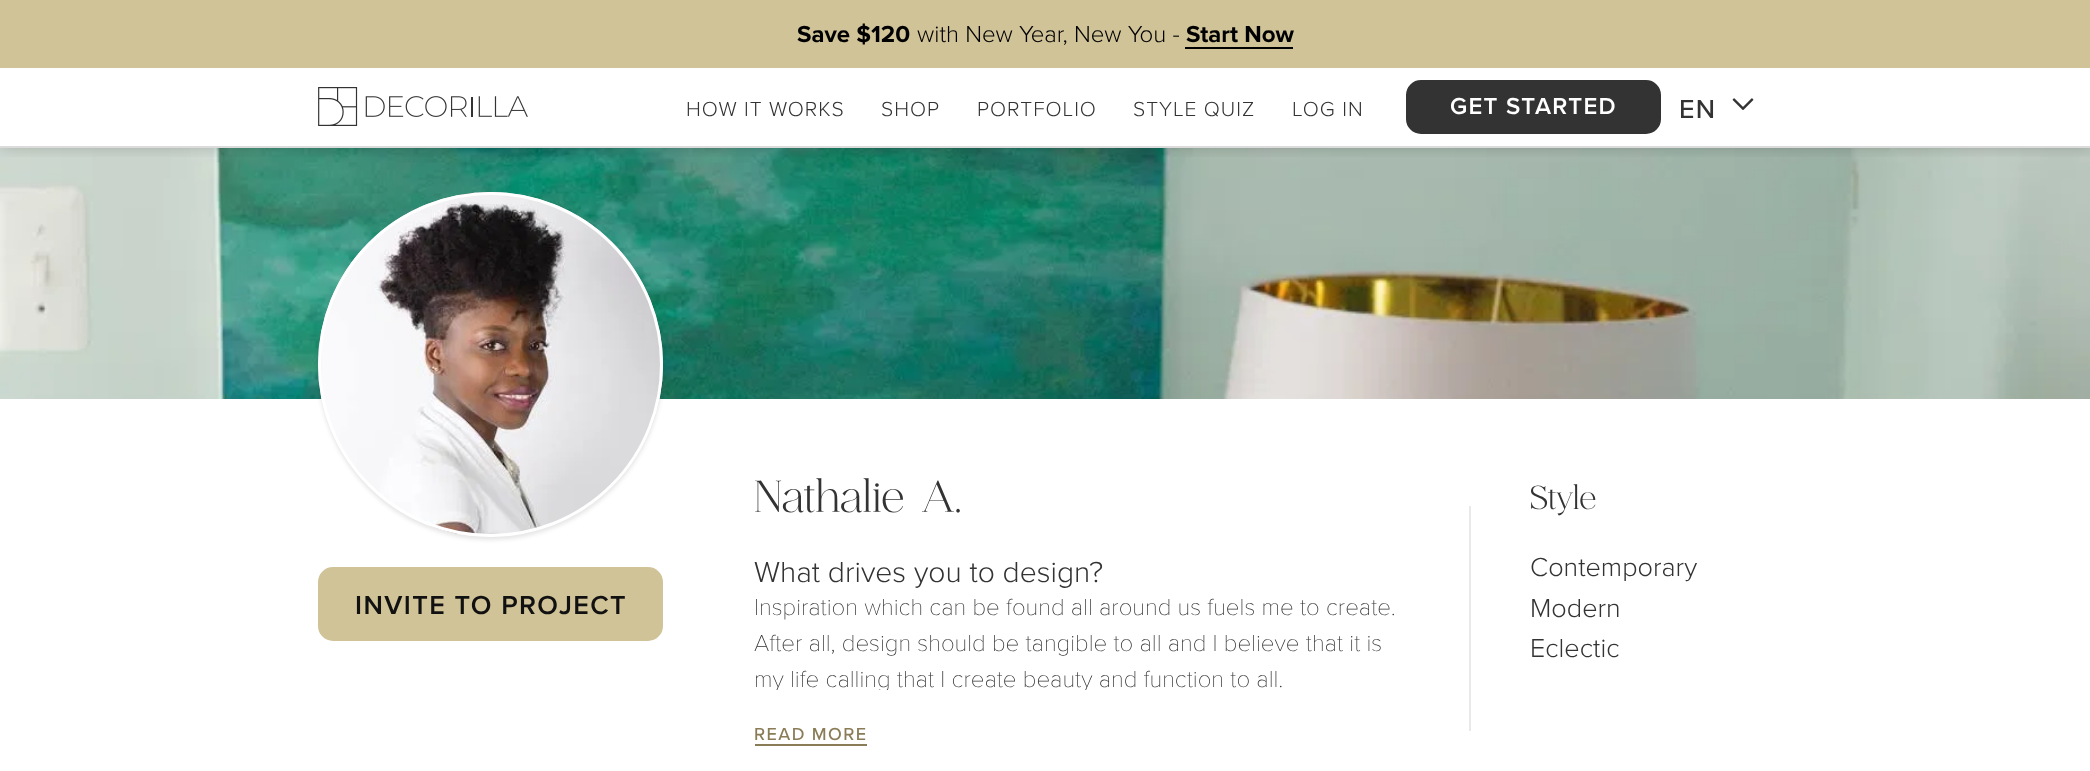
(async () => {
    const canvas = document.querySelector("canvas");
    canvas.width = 2090;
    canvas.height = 771;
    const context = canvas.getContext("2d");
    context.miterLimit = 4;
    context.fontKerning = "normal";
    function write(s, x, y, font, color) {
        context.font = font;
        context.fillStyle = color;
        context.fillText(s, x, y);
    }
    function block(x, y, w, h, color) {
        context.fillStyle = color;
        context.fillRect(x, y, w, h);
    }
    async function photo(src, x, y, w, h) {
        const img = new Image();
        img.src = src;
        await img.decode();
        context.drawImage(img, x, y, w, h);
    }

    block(0, 0, 2090, 771, "rgb(255, 255, 255)");
    await photo("media/3.png", 0, 148, 2090, 251);
    context.save();
    context.beginPath();
    context.rect(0, 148, 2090, 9);
    context.clip();
    context.fillStyle = "rgba(0, 0, 0, 0.2)";
    context.filter = "blur(7.5px)";
    context.beginPath();
    context.rect(0, 68, 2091, 79);
    context.fill();
    context.filter = "none";
    context.restore();
    block(0, 0, 2090, 68, "rgb(209, 195, 152)");
    write("Save $120", 797, 42, "bold 24px Proxima Nova", "rgb(0, 0, 0)");
    write("with New Year, New You -", 917, 42, "300 24px Proxima Nova", "rgb(0, 0, 0)");
    write("Start Now", 1186, 42, "bold 24px Proxima Nova", "rgb(0, 0, 0)");
    block(1185, 47, 108, 2, "rgb(0, 0, 0)");
    block(0, 146, 2090, 2, "rgb(219, 219, 219)");
    await photo("media/1.png", 318, 87, 210, 39);
    context.letterSpacing = "1px";
    write("HOW IT WORKS", 686, 116, "300 21px Proxima Nova", "rgb(51, 51, 51)");
    write("SHOP", 881, 116, "300 21px Proxima Nova", "rgb(51, 51, 51)");
    write("PORTFOLIO", 977, 116, "300 21px Proxima Nova", "rgb(51, 51, 51)");
    write("STYLE QUIZ", 1133, 116, "300 21px Proxima Nova", "rgb(51, 51, 51)");
    write("LOG IN", 1292, 116, "300 21px Proxima Nova", "rgb(51, 51, 51)");
    context.beginPath();
    context.roundRect(1407, 81, 253, 52, 14);
    context.fill();
    context.strokeStyle = "rgb(51, 51, 51)";
    context.lineWidth = 2;
    context.stroke();
    context.letterSpacing = "1.25px";
    write("GET STARTED", 1450, 114, "600 24px Proxima Nova", "rgb(255, 255, 255)");
    context.letterSpacing = "1.4px";
    write("EN", 1679, 118, "500 27px Proxima Nova", "rgb(51, 51, 51)");
    await photo("media/2.png", 1732, 98, 22, 12);
    context.fillStyle = "rgba(0, 0, 0, 0.1)";
    context.filter = "blur(2px)";
    context.beginPath();
    context.roundRect(318, 195, 345, 345, 172.5);
    context.fill();
    context.filter = "none";
    await photo("media/4.png", 318, 192, 345, 345);
    context.beginPath();
    context.arc(490.5, 364.5, 171, 0, Math.PI * 2);
    context.strokeStyle = "rgb(255, 255, 255)";
    context.lineWidth = 3;
    context.stroke();
    context.fillStyle = "rgb(209, 195, 152)";
    context.beginPath();
    context.roundRect(319, 568, 343, 72, 14);
    context.fill();
    context.strokeStyle = "rgb(209, 195, 152)";
    context.lineWidth = 2;
    context.stroke();
    write("INVITE TO PROJECT", 355, 614, "600 27px Proxima Nova", "rgb(17, 17, 17)");
    context.letterSpacing = "0px";
    write("Nathalie A.", 754, 512, "100 45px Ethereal", "rgb(51, 51, 51)");
    write("What drives you to design?", 754, 582, "300 30px Proxima Nova", "rgb(51, 51, 51)");
    write("Inspiration which can be found all around us fuels me to create.", 754, 615, "100 24px Proxima Nova", "rgb(51, 51, 51)");
    write("After all, design should be tangible to all and I believe that it is", 754, 651, "100 24px Proxima Nova", "rgb(51, 51, 51)");
    context.save();
    context.beginPath();
    context.rect(755, 477, 655, 213);
    context.clip();
    write("my life calling that I create beauty and function to all.", 754, 687, "100 24px Proxima Nova", "rgb(51, 51, 51)");
    context.restore();
    context.letterSpacing = "1.4px";
    write("READ MORE", 754, 740, "500 18px Proxima Nova", "rgb(138, 124, 86)");
    block(755, 744, 112, 2, "rgb(138, 124, 86)");
    block(1469, 506, 2, 225, "rgb(233, 233, 233)");
    context.letterSpacing = "0px";
    write("Style", 1530, 509, "100 33px Ethereal", "rgb(51, 51, 51)");
    write("Contemporary", 1530, 576, "300 27px Proxima Nova", "rgb(51, 51, 51)");
    write("Modern", 1530, 617, "300 27px Proxima Nova", "rgb(51, 51, 51)");
    write("Eclectic", 1530, 657, "300 27px Proxima Nova", "rgb(51, 51, 51)");
})();
